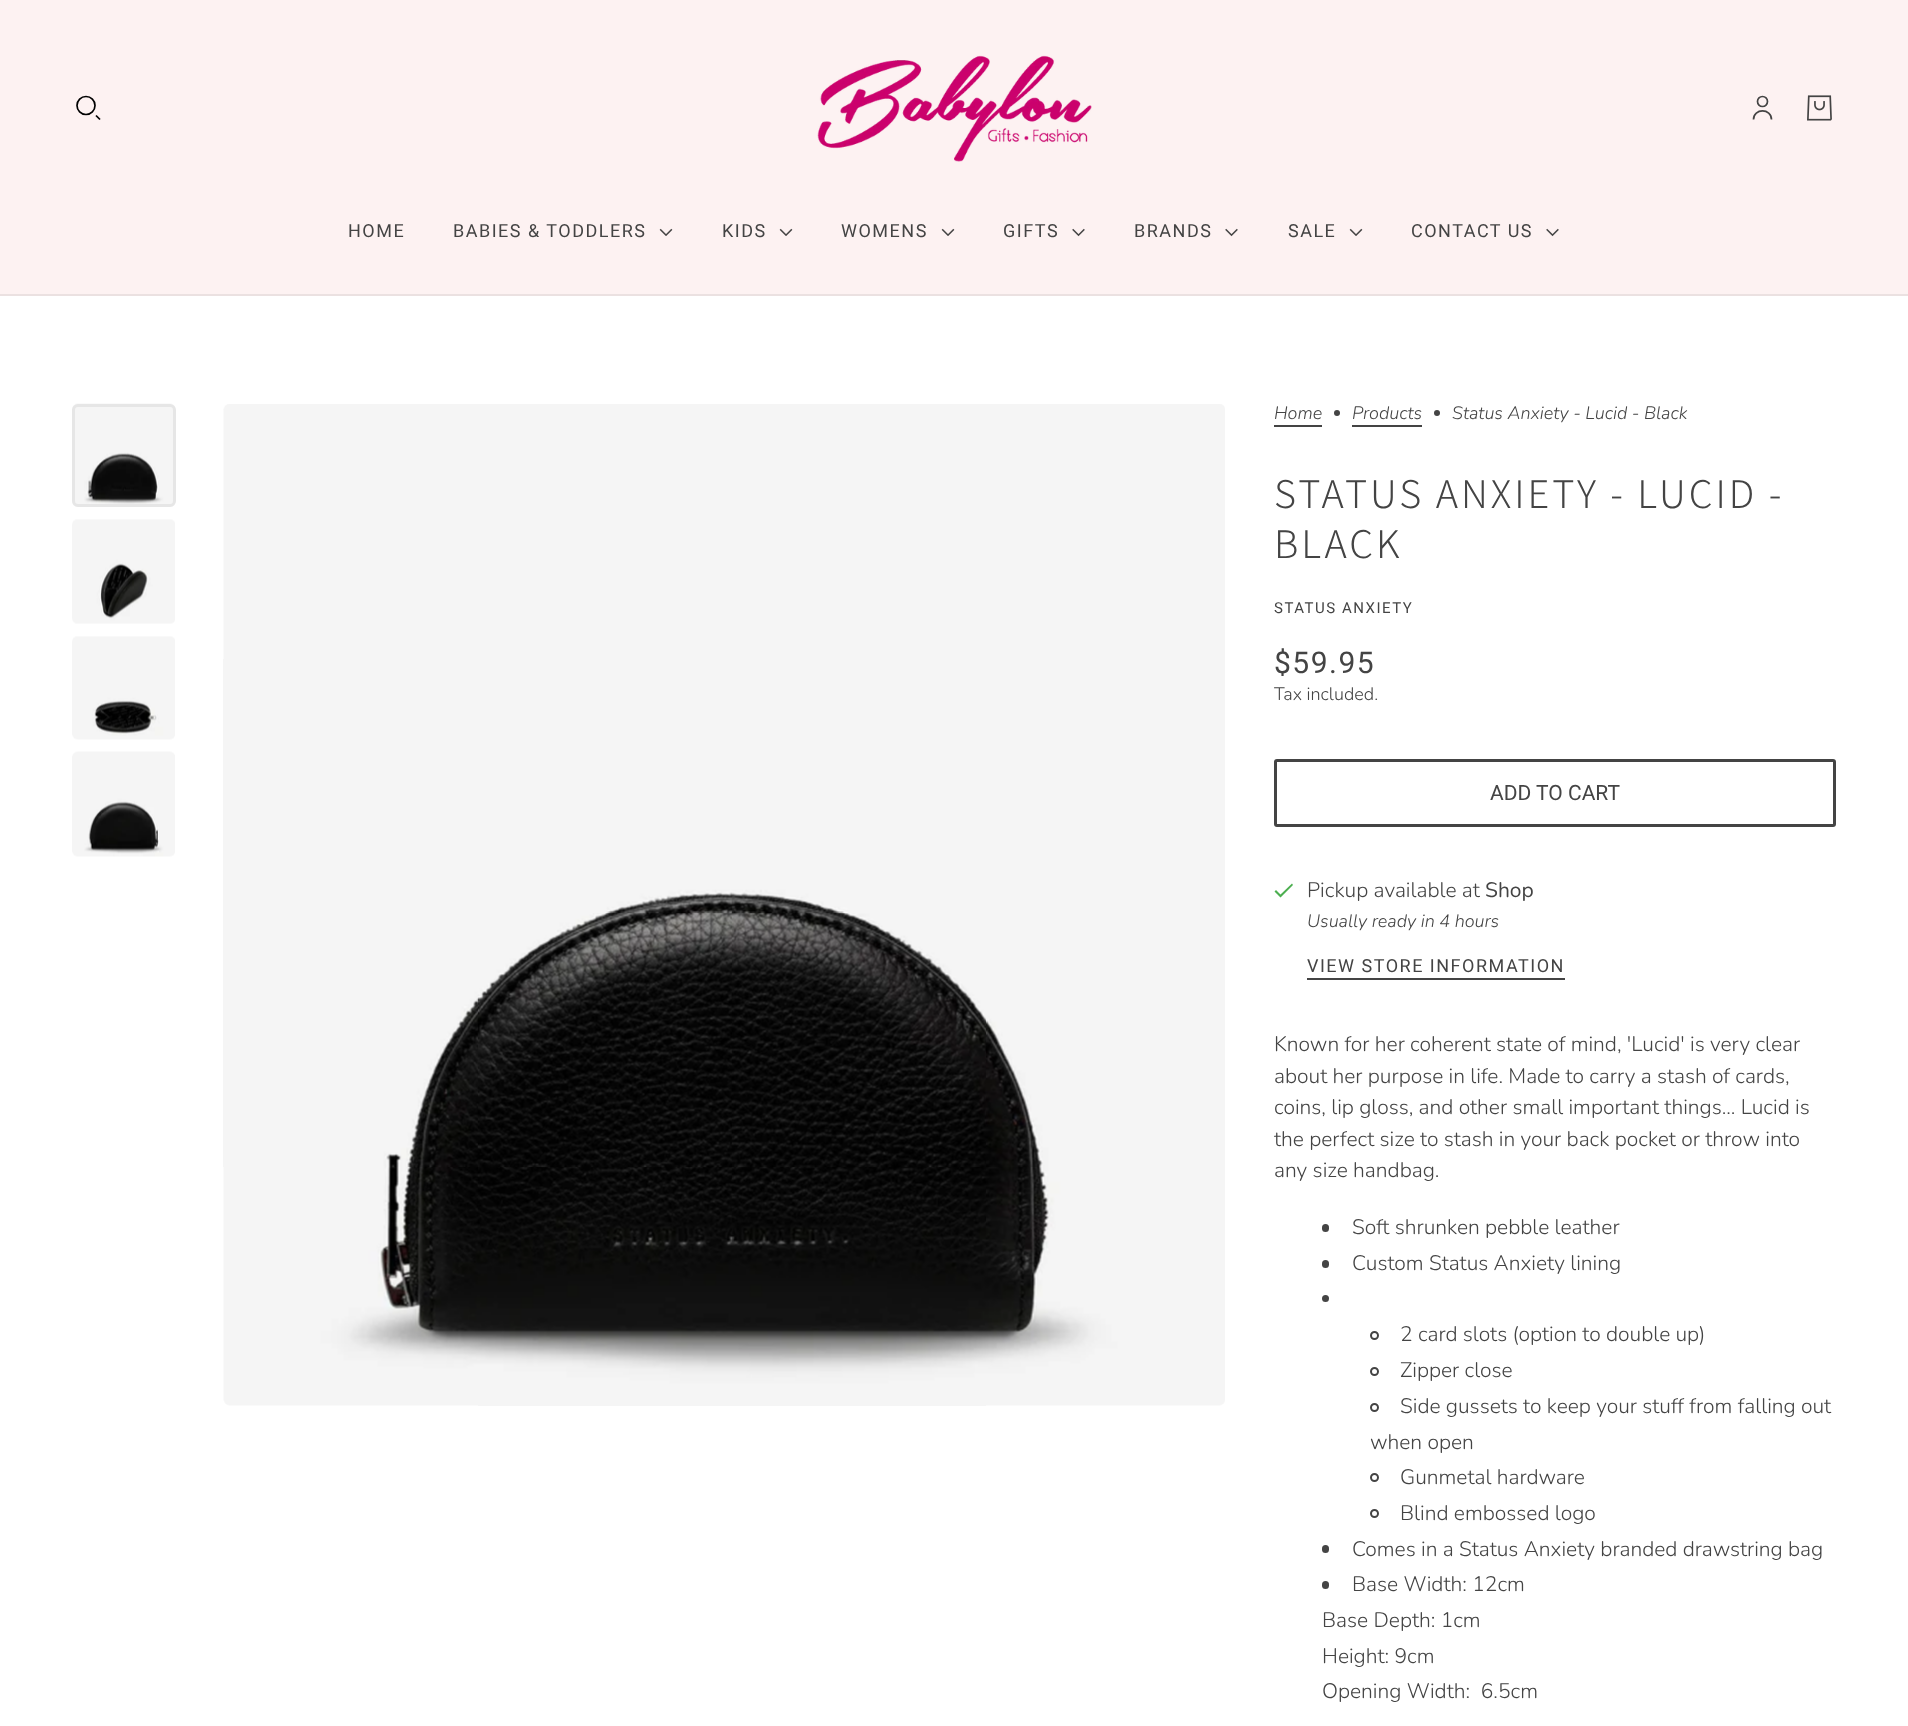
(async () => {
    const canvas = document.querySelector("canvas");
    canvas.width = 1908;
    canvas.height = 1726;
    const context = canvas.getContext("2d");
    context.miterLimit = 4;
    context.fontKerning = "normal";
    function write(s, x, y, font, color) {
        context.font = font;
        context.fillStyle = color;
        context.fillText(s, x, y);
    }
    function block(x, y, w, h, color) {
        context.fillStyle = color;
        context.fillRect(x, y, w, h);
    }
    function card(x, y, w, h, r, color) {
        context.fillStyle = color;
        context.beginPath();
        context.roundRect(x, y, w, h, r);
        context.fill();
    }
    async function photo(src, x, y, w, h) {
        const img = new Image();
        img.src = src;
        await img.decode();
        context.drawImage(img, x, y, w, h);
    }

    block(0, 0, 1908, 1726, "rgb(255, 255, 255)");
    block(0, 0, 1908, 294, "rgb(253, 242, 242)");
    context.beginPath();
    context.arc(86, 105.5, 9, 0, Math.PI * 2);
    context.strokeStyle = "rgb(0, 0, 0)";
    context.lineWidth = 1.7;
    context.stroke();
    context.beginPath();
    context.moveTo(96, 115.5);
    context.lineTo(100, 119.5);
    context.stroke();
    await photo("media/1.png", 817, 55, 275, 107);
    context.beginPath();
    context.arc(1762.5, 101.5, 5, 0, Math.PI * 2);
    context.strokeStyle = "rgb(68, 68, 68)";
    context.stroke();
    context.beginPath();
    context.moveTo(1753.5, 119.5);
    context.bezierCurveTo(1753.5, 108, 1771.5, 108, 1771.5, 119.5);
    context.stroke();
    await photo("media/2.png", 1807, 95, 25, 26);
    context.letterSpacing = "1.5px";
    write("HOME", 348, 237, "18px Roboto", "rgb(68, 68, 68)");
    write("BABIES & TODDLERS", 453, 237, "18px Roboto", "rgb(68, 68, 68)");
    await photo("media/3.png", 659, 228, 14, 8);
    write("KIDS", 722, 237, "18px Roboto", "rgb(68, 68, 68)");
    await photo("media/3.png", 779, 228, 14, 8);
    write("WOMENS", 841, 237, "18px Roboto", "rgb(68, 68, 68)");
    await photo("media/3.png", 941, 228, 14, 8);
    write("GIFTS", 1003, 237, "18px Roboto", "rgb(68, 68, 68)");
    await photo("media/4.png", 1072, 228, 13, 9);
    write("BRANDS", 1134, 237, "18px Roboto", "rgb(68, 68, 68)");
    await photo("media/4.png", 1225, 228, 13, 9);
    write("SALE", 1288, 237, "18px Roboto", "rgb(68, 68, 68)");
    await photo("media/3.png", 1349, 228, 14, 8);
    write("CONTACT US", 1411, 237, "18px Roboto", "rgb(68, 68, 68)");
    await photo("media/4.png", 1546, 228, 13, 9);
    block(0, 294, 1908, 2, "rgb(235, 225, 225)");
    await photo("media/5.png", 72, 403, 103, 104);
    context.beginPath();
    context.roundRect(73.5, 405.5, 101, 100, 4.5);
    context.strokeStyle = "rgb(230, 230, 230)";
    context.lineWidth = 3;
    context.stroke();
    await photo("media/6.png", 72, 519, 103, 105);
    await photo("media/7.png", 72, 636, 103, 104);
    await photo("media/8.png", 72, 751, 103, 106);
    await photo("media/9.png", 223, 404, 1002, 1002);
    context.letterSpacing = "0px";
    write("Home", 1274, 419, "italic 300 18px Nunito", "rgb(68, 68, 68)");
    block(1274, 425, 48, 2, "rgb(68, 68, 68)");
    context.beginPath();
    context.arc(1337, 413, 3, 0, Math.PI * 2);
    context.fill();
    write("Products", 1352, 419, "italic 300 18px Nunito", "rgb(68, 68, 68)");
    block(1352, 425, 70, 2, "rgb(68, 68, 68)");
    context.beginPath();
    context.arc(1437, 413, 3, 0, Math.PI * 2);
    context.fill();
    write("Status Anxiety - Lucid - Black", 1452, 419, "italic 300 18px Nunito", "rgb(68, 68, 68)");
    context.letterSpacing = "3px";
    write("STATUS ANXIETY - LUCID -", 1274, 508, "300 42px Assistant", "rgb(68, 68, 68)");
    write("BLACK", 1274, 558, "300 42px Assistant", "rgb(68, 68, 68)");
    context.letterSpacing = "1.5px";
    write("STATUS ANXIETY", 1274, 613, "15px Roboto", "rgb(68, 68, 68)");
    write("$59.95", 1274, 673, "30px Roboto", "rgb(68, 68, 68)");
    context.letterSpacing = "0px";
    write("Tax included.", 1274, 700, "300 18px Nunito", "rgb(68, 68, 68)");
    context.beginPath();
    context.roundRect(1275.5, 760.5, 559, 65, 1.5);
    context.strokeStyle = "rgb(68, 68, 68)";
    context.stroke();
    write("ADD TO CART", 1490, 800, "21px Roboto", "rgb(68, 68, 68)");
    context.fillStyle = "rgb(76, 175, 80)";
    context.beginPath();
    context.moveTo(1280.5, 894.5);
    context.lineTo(1276, 890);
    context.lineTo(1274.5, 891.5);
    context.lineTo(1280.5, 897.5);
    context.lineTo(1293, 885);
    context.lineTo(1292, 883.5);
    context.closePath();
    context.fill();
    write("Pickup available at", 1307, 897, "300 21px Nunito", "rgb(68, 68, 68)");
    write("Shop", 1485, 897, "21px Nunito", "rgb(68, 68, 68)");
    write("Usually ready in 4 hours", 1307, 927, "italic 300 18px Nunito", "rgb(68, 68, 68)");
    context.letterSpacing = "1.5px";
    write("VIEW STORE INFORMATION", 1307, 972, "18px Roboto", "rgb(68, 68, 68)");
    block(1307, 978, 258, 2, "rgb(68, 68, 68)");
    context.letterSpacing = "0px";
    write("Known for her coherent state of mind, 'Lucid' is very clear", 1274, 1051, "300 21px Nunito", "rgb(68, 68, 68)");
    write("about her purpose in life. Made to carry a stash of cards,", 1274, 1083, "300 21px Nunito", "rgb(68, 68, 68)");
    write("coins, lip gloss, and other small important things... Lucid is", 1274, 1114, "300 21px Nunito", "rgb(68, 68, 68)");
    write("the perfect size to stash in your back pocket or throw into", 1274, 1146, "300 21px Nunito", "rgb(68, 68, 68)");
    write("any size handbag.", 1274, 1177, "300 21px Nunito", "rgb(68, 68, 68)");
    card(1322, 1224, 7, 8, 3.5, "rgb(68, 68, 68)");
    write("Soft shrunken pebble leather", 1352, 1234, "300 21px Nunito", "rgb(68, 68, 68)");
    card(1322, 1260, 7, 8, 3.5, "rgb(68, 68, 68)");
    write("Custom Status Anxiety lining", 1352, 1270, "300 21px Nunito", "rgb(68, 68, 68)");
    context.beginPath();
    context.arc(1325.5, 1298.5, 3.5, 0, Math.PI * 2);
    context.fill();
    context.beginPath();
    context.arc(1374.5, 1335.5, 3.5, 0, Math.PI * 2);
    context.lineWidth = 2;
    context.stroke();
    write("2 card slots (option to double up)", 1400, 1341, "300 21px Nunito", "rgb(68, 68, 68)");
    context.beginPath();
    context.arc(1374.5, 1371.5, 3.5, 0, Math.PI * 2);
    context.stroke();
    write("Zipper close", 1400, 1377, "300 21px Nunito", "rgb(68, 68, 68)");
    context.beginPath();
    context.arc(1374.5, 1407.5, 3.5, 0, Math.PI * 2);
    context.stroke();
    write("Side gussets to keep your stuff from falling out", 1400, 1413, "300 21px Nunito", "rgb(68, 68, 68)");
    write("when open", 1370, 1449, "300 21px Nunito", "rgb(68, 68, 68)");
    context.beginPath();
    context.arc(1374.5, 1477.5, 3.5, 0, Math.PI * 2);
    context.stroke();
    write("Gunmetal hardware", 1400, 1484, "300 21px Nunito", "rgb(68, 68, 68)");
    context.beginPath();
    context.arc(1374.5, 1513.5, 3.5, 0, Math.PI * 2);
    context.stroke();
    write("Blind embossed logo", 1400, 1520, "300 21px Nunito", "rgb(68, 68, 68)");
    card(1322, 1545, 7, 8, 3.5, "rgb(68, 68, 68)");
    write("Comes in a Status Anxiety branded drawstring bag", 1352, 1556, "300 21px Nunito", "rgb(68, 68, 68)");
    card(1322, 1581, 7, 8, 3.5, "rgb(68, 68, 68)");
    write("Base Width: 12cm", 1352, 1591, "300 21px Nunito", "rgb(68, 68, 68)");
    write("Base Depth: 1cm", 1322, 1627, "300 21px Nunito", "rgb(68, 68, 68)");
    write("Height: 9cm", 1322, 1663, "300 21px Nunito", "rgb(68, 68, 68)");
    write("Opening Width:  6.5cm", 1322, 1698, "300 21px Nunito", "rgb(68, 68, 68)");
})();
